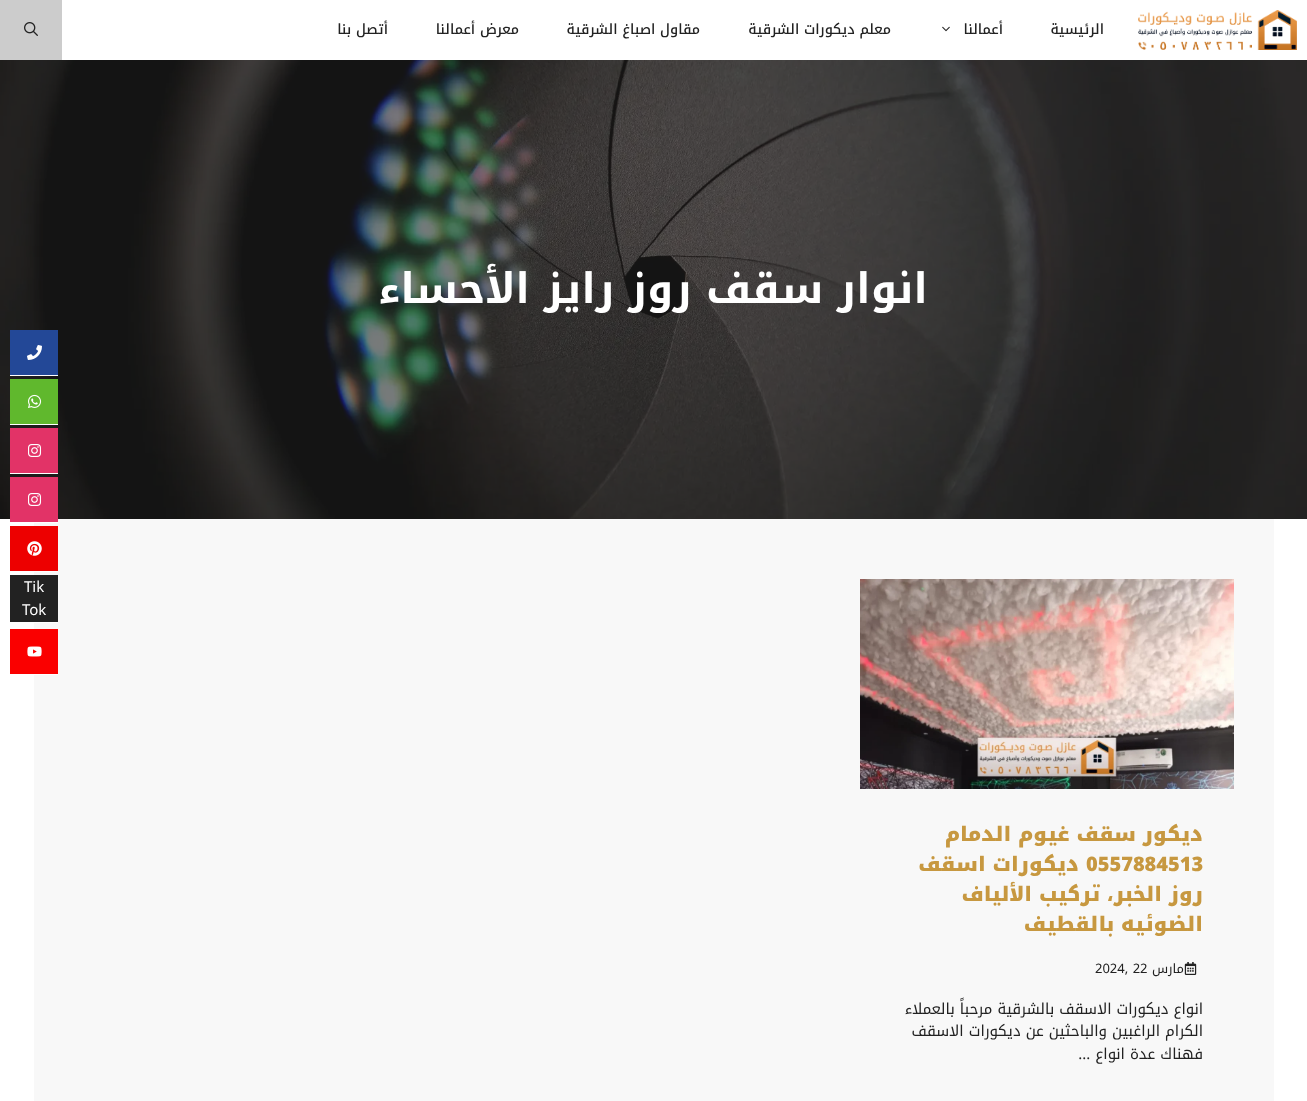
(async () => {
    const canvas = document.querySelector("canvas");
    canvas.width = 1307;
    canvas.height = 1101;
    const context = canvas.getContext("2d");
    context.miterLimit = 4;
    context.fontKerning = "normal";
    function write(s, x, y, font, color) {
        context.font = font;
        context.fillStyle = color;
        context.fillText(s, x, y);
    }
    function block(x, y, w, h, color) {
        context.fillStyle = color;
        context.fillRect(x, y, w, h);
    }
    async function photo(src, x, y, w, h) {
        const img = new Image();
        img.src = src;
        await img.decode();
        context.drawImage(img, x, y, w, h);
    }

    block(0, 0, 1307, 1101, "rgb(255, 255, 255)");
    await photo("media/1.png", 1138, 10, 159, 40);
    context.direction = "rtl";
    write("الرئيسية", 1104, 34, "500 14px Noto Kufi Arabic", "rgb(34, 34, 34)");
    write("أعمالنا", 1003, 34, "500 14px Noto Kufi Arabic", "rgb(34, 34, 34)");
    await photo("media/2.png", 942, 26, 8, 6);
    write("معلم ديكورات الشرقية", 891, 34, "500 14px Noto Kufi Arabic", "rgb(34, 34, 34)");
    write("مقاول اصباغ الشرقية", 700, 34, "500 14px Noto Kufi Arabic", "rgb(34, 34, 34)");
    write("معرض أعمالنا", 519, 34, "500 14px Noto Kufi Arabic", "rgb(34, 34, 34)");
    write("أتصل بنا", 388, 34, "500 14px Noto Kufi Arabic", "rgb(34, 34, 34)");
    block(0, 0, 62, 60, "rgb(204, 204, 204)");
    await photo("media/3.png", 24, 22, 14, 14);
    block(0, 60, 1307, 459, "rgb(34, 34, 34)");
    await photo("media/4.png", 0, 60, 1307, 459);
    write("انوار سقف روز رايز الأحساء", 928, 303, "bold 42px Noto Kufi Arabic", "rgb(255, 255, 255)");
    block(10, 330, 48, 45, "rgb(35, 72, 151)");
    block(10, 375, 48, 1, "rgb(255, 255, 255)");
    await photo("media/5.png", 27, 345, 15, 15);
    block(10, 379, 48, 45, "rgb(96, 184, 45)");
    block(10, 424, 48, 1, "rgb(255, 255, 255)");
    await photo("media/6.png", 28, 394, 14, 14);
    block(10, 428, 48, 45, "rgb(226, 51, 103)");
    block(10, 473, 48, 1, "rgb(255, 255, 255)");
    await photo("media/7.png", 28, 444, 14, 13);
    block(34, 519, 1240, 582, "rgb(248, 248, 248)");
    block(10, 477, 48, 45, "rgb(226, 51, 103)");
    block(34, 522, 24, 1, "rgb(255, 255, 255)");
    await photo("media/7.png", 28, 493, 14, 13);
    block(10, 526, 48, 45, "rgb(237, 0, 0)");
    block(34, 571, 24, 1, "rgb(255, 255, 255)");
    await photo("media/8.png", 27, 541, 15, 15);
    block(10, 575, 48, 47, "rgb(34, 34, 34)");
    block(34, 622, 24, 1, "rgb(255, 255, 255)");
    context.direction = "ltr";
    write("Tik", 24, 592, "15px Noto Kufi Arabic", "rgb(255, 255, 255)");
    write("Tok", 22, 615, "15px Noto Kufi Arabic", "rgb(255, 255, 255)");
    block(10, 629, 48, 45, "rgb(250, 0, 0)");
    block(34, 674, 24, 1, "rgb(255, 255, 255)");
    await photo("media/9.png", 27, 646, 15, 11);
    await photo("media/10.png", 860, 579, 374, 210);
    context.direction = "rtl";
    write("ديكور سقف غيوم الدمام", 1203, 841, "900 20px Noto Kufi Arabic", "rgb(199, 152, 64)");
    context.direction = "ltr";
    write("0557884513", 1086, 871, "900 20px Noto Kufi Arabic", "rgb(199, 152, 64)");
    context.direction = "rtl";
    write("ديكورات اسقف", 1079, 871, "900 20px Noto Kufi Arabic", "rgb(199, 152, 64)");
    write("روز الخبر، تركيب الألياف", 1203, 901, "900 20px Noto Kufi Arabic", "rgb(199, 152, 64)");
    write("الضوئيه بالقطيف", 1203, 931, "900 20px Noto Kufi Arabic", "rgb(199, 152, 64)");
    await photo("media/11.png", 1184, 962, 13, 13);
    write("مارس", 1184, 973, "13px Noto Kufi Arabic", "rgb(34, 34, 34)");
    context.direction = "ltr";
    write("2024, 22", 1095, 973, "13px Noto Kufi Arabic", "rgb(34, 34, 34)");
    context.direction = "rtl";
    write("انواع ديكورات الاسقف بالشرقية مرحباً بالعملاء", 1203, 1014, "15px Noto Kufi Arabic", "rgb(34, 34, 34)");
    write("الكرام الراغبين والباحثين عن ديكورات الاسقف", 1203, 1036, "15px Noto Kufi Arabic", "rgb(34, 34, 34)");
    write("فهناك عدة انواع ...", 1203, 1059, "15px Noto Kufi Arabic", "rgb(34, 34, 34)");
})();
